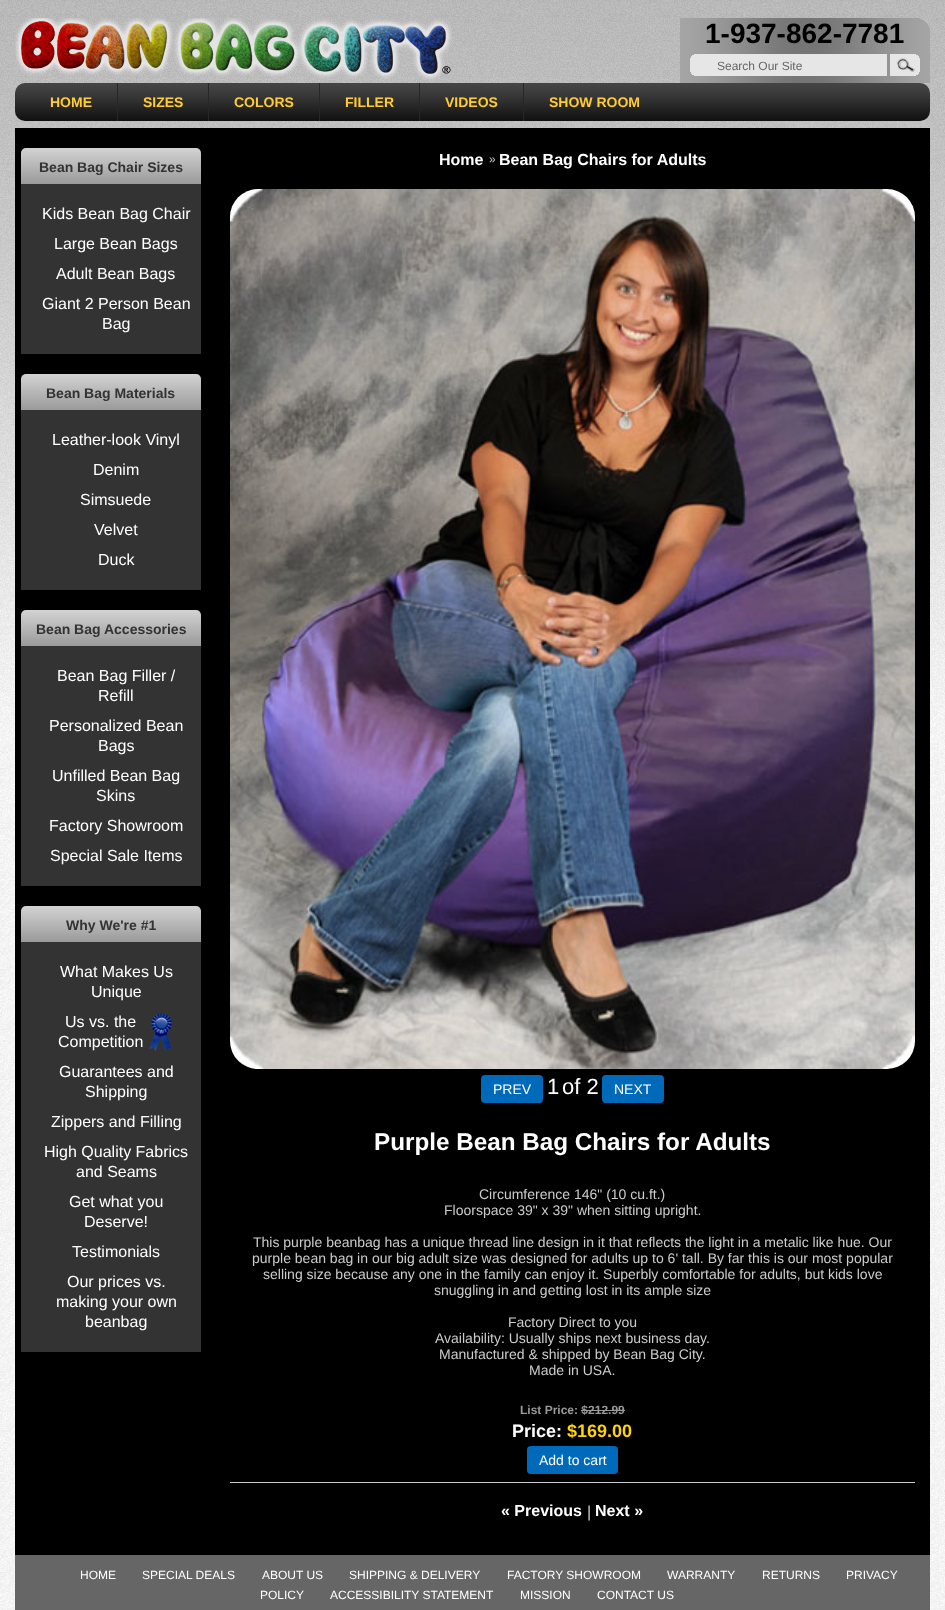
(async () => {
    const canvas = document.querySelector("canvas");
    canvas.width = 945;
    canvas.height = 1610;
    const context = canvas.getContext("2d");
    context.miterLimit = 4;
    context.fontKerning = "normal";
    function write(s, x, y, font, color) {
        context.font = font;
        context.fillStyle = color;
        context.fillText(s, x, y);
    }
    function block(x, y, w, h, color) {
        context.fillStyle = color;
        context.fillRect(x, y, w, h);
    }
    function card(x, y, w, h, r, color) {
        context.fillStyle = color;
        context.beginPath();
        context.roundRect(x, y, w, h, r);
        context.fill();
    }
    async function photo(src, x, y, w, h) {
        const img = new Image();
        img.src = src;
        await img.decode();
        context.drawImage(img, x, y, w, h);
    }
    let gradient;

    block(0, 0, 945, 1610, "rgb(255, 255, 255)");
    await photo("media/1.png", 0, 742, 945, 868);
    await photo("media/2.png", 0, 0, 945, 742);
    await photo("media/3.png", 15, 18, 437, 62);
    await photo("media/4.png", 680, 18, 250, 65);
    write("1-937-862-7781", 705, 43, "bold 28px Liberation Sans", "rgb(0, 0, 0)");
    write("Search Our Site", 717, 70, "12px Liberation Sans", "rgb(102, 102, 102)");
    await photo("media/5.png", 15, 83, 915, 38);
    write("HOME", 50, 107, "bold 14px Liberation Sans", "rgb(255, 204, 51)");
    block(117, 83, 1, 38, "rgb(39, 39, 39)");
    write("SIZES", 143, 107, "bold 14px Liberation Sans", "rgb(255, 204, 51)");
    block(208, 83, 1, 38, "rgb(39, 39, 39)");
    write("COLORS", 234, 107, "bold 14px Liberation Sans", "rgb(255, 204, 51)");
    block(319, 83, 1, 38, "rgb(39, 39, 39)");
    write("FILLER", 345, 107, "bold 14px Liberation Sans", "rgb(255, 204, 51)");
    block(419, 83, 1, 38, "rgb(39, 39, 39)");
    write("VIDEOS", 445, 107, "bold 14px Liberation Sans", "rgb(255, 204, 51)");
    block(523, 83, 1, 38, "rgb(39, 39, 39)");
    write("SHOW ROOM", 549, 107, "bold 14px Liberation Sans", "rgb(255, 204, 51)");
    block(15, 128, 915, 1427, "rgb(0, 0, 0)");
    gradient = context.createLinearGradient(111, 148, 111, 184);
    gradient.addColorStop(0, "rgb(211, 211, 211)");
    gradient.addColorStop(1, "rgb(154, 154, 154)");
    context.fillStyle = gradient;
    context.beginPath();
    context.roundRect(21, 148, 180, 36, [5, 5, 0, 0]);
    context.fill();
    write("Bean Bag Chair Sizes", 39, 172, "bold 14px Liberation Sans", "rgb(51, 51, 51)");
    block(21, 184, 180, 170, "rgb(51, 51, 51)");
    write("Kids Bean Bag Chair", 42, 219, "16px Liberation Sans", "rgb(255, 255, 255)");
    write("Large Bean Bags", 54, 249, "16px Liberation Sans", "rgb(255, 255, 255)");
    write("Adult Bean Bags", 56, 279, "16px Liberation Sans", "rgb(255, 255, 255)");
    write("Giant 2 Person Bean", 42, 309, "16px Liberation Sans", "rgb(255, 255, 255)");
    write("Bag", 102, 329, "16px Liberation Sans", "rgb(255, 255, 255)");
    gradient = context.createLinearGradient(111, 374, 111, 410);
    gradient.addColorStop(0, "rgb(211, 211, 211)");
    gradient.addColorStop(1, "rgb(154, 154, 154)");
    context.fillStyle = gradient;
    context.beginPath();
    context.roundRect(21, 374, 180, 36, [5, 5, 0, 0]);
    context.fill();
    write("Bean Bag Materials", 46, 398, "bold 14px Liberation Sans", "rgb(51, 51, 51)");
    block(21, 410, 180, 180, "rgb(51, 51, 51)");
    write("Leather-look Vinyl", 52, 445, "16px Liberation Sans", "rgb(255, 255, 255)");
    write("Denim", 93, 475, "16px Liberation Sans", "rgb(255, 255, 255)");
    write("Simsuede", 80, 505, "16px Liberation Sans", "rgb(255, 255, 255)");
    write("Velvet", 94, 535, "16px Liberation Sans", "rgb(255, 255, 255)");
    write("Duck", 98, 565, "16px Liberation Sans", "rgb(255, 255, 255)");
    gradient = context.createLinearGradient(111, 610, 111, 646);
    gradient.addColorStop(0, "rgb(211, 211, 211)");
    gradient.addColorStop(1, "rgb(154, 154, 154)");
    context.fillStyle = gradient;
    context.beginPath();
    context.roundRect(21, 610, 180, 36, [5, 5, 0, 0]);
    context.fill();
    write("Bean Bag Accessories", 36, 634, "bold 14px Liberation Sans", "rgb(51, 51, 51)");
    block(21, 646, 180, 240, "rgb(51, 51, 51)");
    write("Bean Bag Filler /", 57, 681, "16px Liberation Sans", "rgb(255, 255, 255)");
    write("Refill", 98, 701, "16px Liberation Sans", "rgb(255, 255, 255)");
    write("Personalized Bean", 49, 731, "16px Liberation Sans", "rgb(255, 255, 255)");
    write("Bags", 98, 751, "16px Liberation Sans", "rgb(255, 255, 255)");
    write("Unfilled Bean Bag", 52, 781, "16px Liberation Sans", "rgb(255, 255, 255)");
    write("Skins", 96, 801, "16px Liberation Sans", "rgb(255, 255, 255)");
    write("Factory Showroom", 49, 831, "16px Liberation Sans", "rgb(255, 255, 255)");
    write("Special Sale Items", 50, 861, "16px Liberation Sans", "rgb(255, 255, 255)");
    gradient = context.createLinearGradient(111, 906, 111, 942);
    gradient.addColorStop(0, "rgb(211, 211, 211)");
    gradient.addColorStop(1, "rgb(154, 154, 154)");
    context.fillStyle = gradient;
    context.beginPath();
    context.roundRect(21, 906, 180, 36, [5, 5, 0, 0]);
    context.fill();
    write("Why We're #1", 66, 930, "bold 14px Liberation Sans", "rgb(51, 51, 51)");
    block(21, 942, 180, 410, "rgb(51, 51, 51)");
    write("What Makes Us", 60, 977, "16px Liberation Sans", "rgb(255, 255, 255)");
    write("Unique", 91, 997, "16px Liberation Sans", "rgb(255, 255, 255)");
    await photo("media/6.png", 149, 1013, 23, 38);
    write("Us vs. the", 65, 1027, "16px Liberation Sans", "rgb(255, 255, 255)");
    write("Competition", 58, 1047, "16px Liberation Sans", "rgb(255, 255, 255)");
    write("Guarantees and", 59, 1077, "16px Liberation Sans", "rgb(255, 255, 255)");
    write("Shipping", 85, 1097, "16px Liberation Sans", "rgb(255, 255, 255)");
    write("Zippers and Filling", 51, 1127, "16px Liberation Sans", "rgb(255, 255, 255)");
    write("High Quality Fabrics", 44, 1157, "16px Liberation Sans", "rgb(255, 255, 255)");
    write("and Seams", 76, 1177, "16px Liberation Sans", "rgb(255, 255, 255)");
    write("Get what you", 69, 1207, "16px Liberation Sans", "rgb(255, 255, 255)");
    write("Deserve!", 84, 1227, "16px Liberation Sans", "rgb(255, 255, 255)");
    write("Testimonials", 72, 1257, "16px Liberation Sans", "rgb(255, 255, 255)");
    write("Our prices vs.", 67, 1287, "16px Liberation Sans", "rgb(255, 255, 255)");
    write("making your own", 56, 1307, "16px Liberation Sans", "rgb(255, 255, 255)");
    write("beanbag", 85, 1327, "16px Liberation Sans", "rgb(255, 255, 255)");
    write("Home", 439, 165, "bold 16px Liberation Sans", "rgb(255, 255, 255)");
    write("»", 489, 163, "12px Liberation Sans", "rgb(204, 204, 204)");
    write("Bean Bag Chairs for Adults", 499, 165, "bold 16px Liberation Sans", "rgb(255, 255, 255)");
    await photo("media/7.png", 230, 189, 685, 880);
    card(481, 1075, 62, 28, 4, "rgb(0, 106, 186)");
    write("PREV", 493, 1094, "14px Liberation Sans", "rgb(255, 255, 255)");
    write("1", 547, 1094, "22px Liberation Sans", "rgb(255, 255, 255)");
    write("of 2", 562, 1094, "22px Liberation Sans", "rgb(255, 255, 255)");
    card(602, 1075, 62, 28, 4, "rgb(0, 106, 186)");
    write("NEXT", 614, 1094, "14px Liberation Sans", "rgb(255, 255, 255)");
    write("Purple Bean Bag Chairs for Adults", 374, 1150, "bold 24.25px Liberation Sans", "rgb(255, 255, 255)");
    write("Circumference 146\" (10 cu.ft.)", 479, 1199, "14px Liberation Sans", "rgb(204, 204, 204)");
    write("Floorspace 39\" x 39\" when sitting upright.", 444, 1215, "14px Liberation Sans", "rgb(204, 204, 204)");
    write("This purple beanbag has a unique thread line design in it that reflects the light in a metalic like hue. Our", 253, 1247, "14px Liberation Sans", "rgb(204, 204, 204)");
    write("purple bean bag in our big adult size was designed for adults up to 6' tall. By far this is our most popular", 252, 1263, "14px Liberation Sans", "rgb(204, 204, 204)");
    write("selling size because any one in the family can enjoy it. Superbly comfortable for adults, but kids love", 263, 1279, "14px Liberation Sans", "rgb(204, 204, 204)");
    write("snuggling in and getting lost in its ample size", 434, 1295, "14px Liberation Sans", "rgb(204, 204, 204)");
    write("Factory Direct to you", 508, 1327, "14px Liberation Sans", "rgb(204, 204, 204)");
    write("Availability: Usually ships next business day.", 435, 1343, "14px Liberation Sans", "rgb(204, 204, 204)");
    write("Manufactured & shipped by Bean Bag City.", 439, 1359, "14px Liberation Sans", "rgb(204, 204, 204)");
    write("Made in USA.", 529, 1375, "14px Liberation Sans", "rgb(204, 204, 204)");
    write("List Price: $212.99", 520, 1414, "bold 12px Liberation Sans", "rgb(153, 153, 153)");
    block(581, 1410, 44, 1, "rgb(153, 153, 153)");
    write("Price:", 512, 1437, "bold 18px Liberation Sans", "rgb(255, 255, 255)");
    write("$169.00", 567, 1437, "bold 18px Liberation Sans", "rgb(255, 212, 2)");
    card(527, 1446, 91, 28, 4, "rgb(0, 106, 186)");
    write("Add to cart", 539, 1465, "14px Liberation Sans", "rgb(255, 255, 255)");
    block(230, 1482, 685, 1, "rgb(204, 204, 204)");
    write("« Previous", 501, 1516, "bold 16px Liberation Sans", "rgb(255, 255, 255)");
    write("|", 587, 1517, "16px Liberation Sans", "rgb(204, 204, 204)");
    write("Next »", 595, 1516, "bold 16px Liberation Sans", "rgb(255, 255, 255)");
    block(15, 1555, 915, 55, "rgb(102, 102, 102)");
    write("HOME", 80, 1579, "12px Liberation Sans", "rgb(255, 255, 255)");
    write("SPECIAL DEALS", 142, 1579, "12px Liberation Sans", "rgb(255, 255, 255)");
    write("ABOUT US", 262, 1579, "12px Liberation Sans", "rgb(255, 255, 255)");
    write("SHIPPING & DELIVERY", 349, 1579, "12px Liberation Sans", "rgb(255, 255, 255)");
    write("FACTORY SHOWROOM", 507, 1579, "12px Liberation Sans", "rgb(255, 255, 255)");
    write("WARRANTY", 667, 1579, "12px Liberation Sans", "rgb(255, 255, 255)");
    write("RETURNS", 762, 1579, "12px Liberation Sans", "rgb(255, 255, 255)");
    write("PRIVACY", 846, 1579, "12px Liberation Sans", "rgb(255, 255, 255)");
    write("POLICY", 260, 1599, "12px Liberation Sans", "rgb(255, 255, 255)");
    write("ACCESSIBILITY STATEMENT", 330, 1599, "12px Liberation Sans", "rgb(255, 255, 255)");
    write("MISSION", 520, 1599, "12px Liberation Sans", "rgb(255, 255, 255)");
    write("CONTACT US", 597, 1599, "12px Liberation Sans", "rgb(255, 255, 255)");
})();
